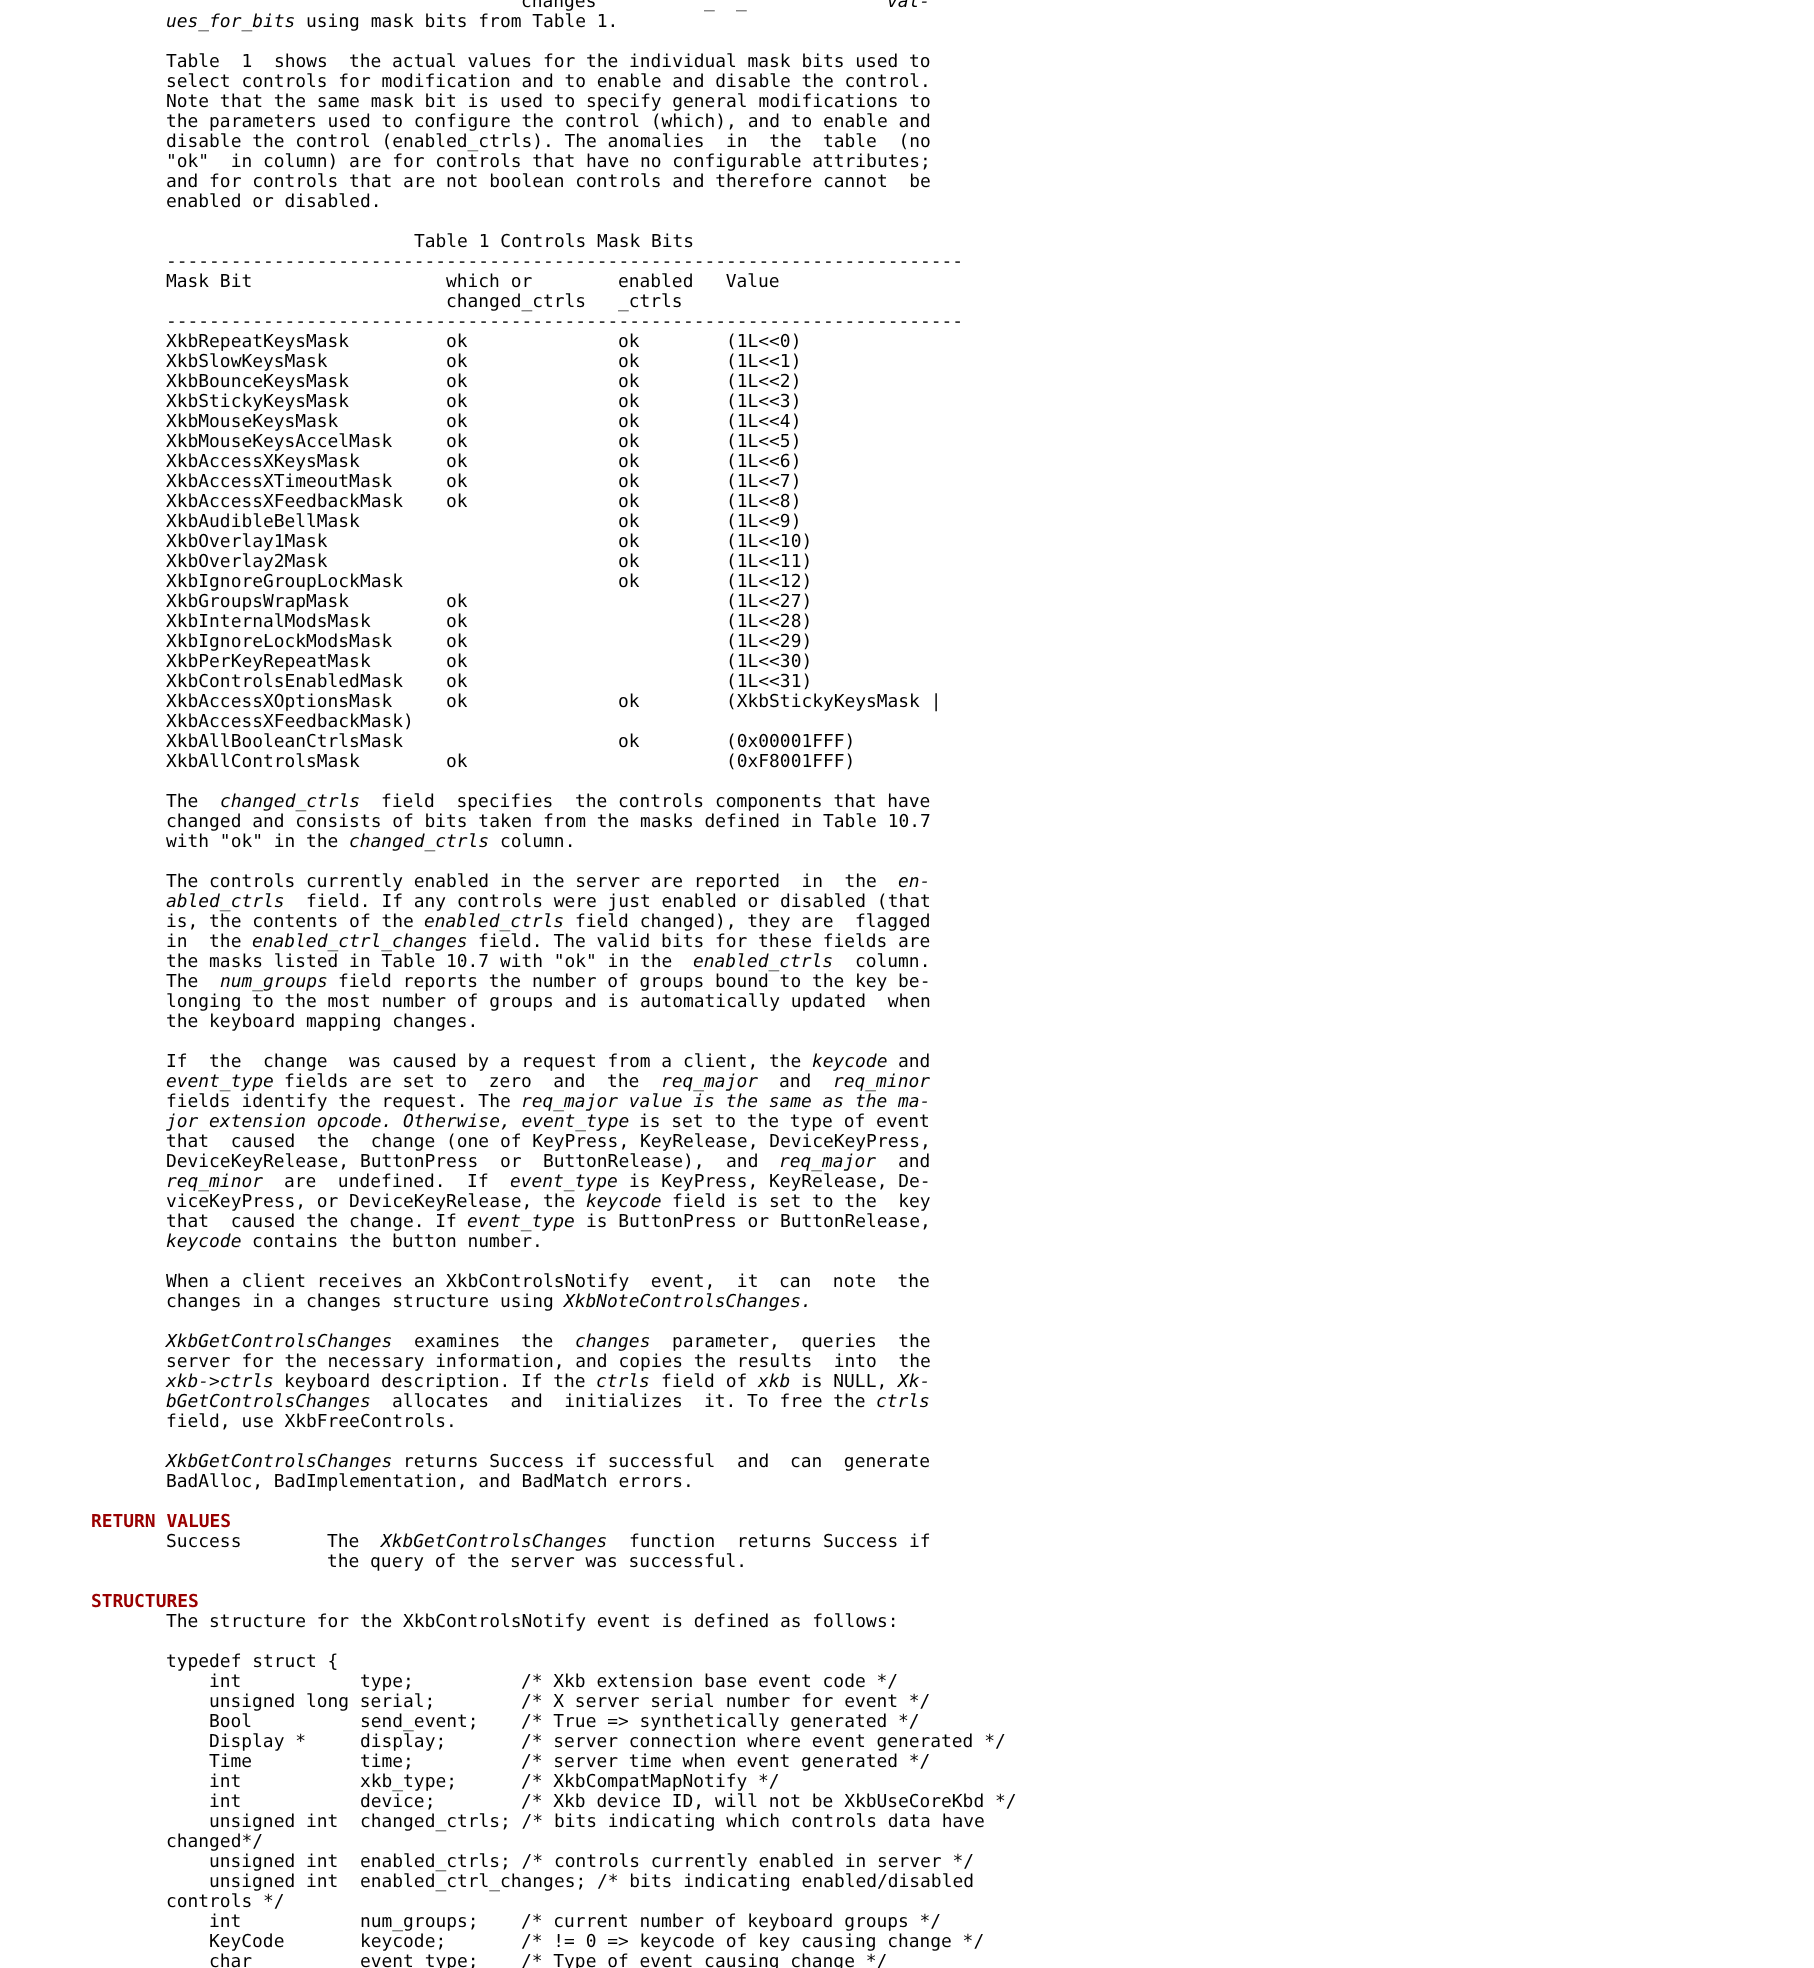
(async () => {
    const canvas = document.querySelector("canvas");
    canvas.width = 1814;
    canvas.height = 1968;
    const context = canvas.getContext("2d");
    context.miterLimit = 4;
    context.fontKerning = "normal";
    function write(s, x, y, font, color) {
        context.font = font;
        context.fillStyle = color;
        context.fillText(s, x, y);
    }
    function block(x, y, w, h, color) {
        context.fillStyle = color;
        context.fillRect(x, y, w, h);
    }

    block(0, 0, 1814, 1968, "rgb(255, 255, 255)");
    write("changes", 521, 7, "17.9px DejaVu Sans Mono", "rgb(0, 0, 0)");
    write("val-", 887, 7, "italic 17.9px DejaVu Sans Mono", "rgb(0, 0, 0)");
    write("_", 704, 7, "italic 17.9px DejaVu Sans Mono", "rgb(0, 0, 0)");
    write("_", 736, 7, "italic 17.9px DejaVu Sans Mono", "rgb(0, 0, 0)");
    write("ues_for_bits", 166, 27, "italic 17.9px DejaVu Sans Mono", "rgb(0, 0, 0)");
    write("using mask bits from Table 1.", 306, 27, "17.9px DejaVu Sans Mono", "rgb(0, 0, 0)");
    write("Table  1", 166, 67, "17.9px DejaVu Sans Mono", "rgb(0, 0, 0)");
    write("shows", 274, 67, "17.9px DejaVu Sans Mono", "rgb(0, 0, 0)");
    write("the actual values for the individual mask bits used to", 349, 67, "17.9px DejaVu Sans Mono", "rgb(0, 0, 0)");
    write("select controls for modification and to enable and disable the control.", 166, 87, "17.9px DejaVu Sans Mono", "rgb(0, 0, 0)");
    write("Note that the same mask bit is used to specify general modifications to", 166, 107, "17.9px DejaVu Sans Mono", "rgb(0, 0, 0)");
    write("the parameters used to configure the control (which), and to enable and", 166, 127, "17.9px DejaVu Sans Mono", "rgb(0, 0, 0)");
    write("disable the control (enabled_ctrls). The anomalies  in  the  table  (no", 166, 147, "17.9px DejaVu Sans Mono", "rgb(0, 0, 0)");
    write("\"ok\"  in column) are for controls that have no configurable attributes;", 166, 167, "17.9px DejaVu Sans Mono", "rgb(0, 0, 0)");
    write("and for controls that are not boolean controls and therefore cannot  be", 166, 187, "17.9px DejaVu Sans Mono", "rgb(0, 0, 0)");
    write("enabled or disabled.", 166, 207, "17.9px DejaVu Sans Mono", "rgb(0, 0, 0)");
    write("Table 1 Controls Mask Bits", 414, 247, "17.9px DejaVu Sans Mono", "rgb(0, 0, 0)");
    write("--------------------------------------------------------------------------", 166, 267, "17.9px DejaVu Sans Mono", "rgb(0, 0, 0)");
    write("Mask Bit", 166, 287, "17.9px DejaVu Sans Mono", "rgb(0, 0, 0)");
    write("which or", 446, 287, "17.9px DejaVu Sans Mono", "rgb(0, 0, 0)");
    write("enabled   Value", 618, 287, "17.9px DejaVu Sans Mono", "rgb(0, 0, 0)");
    write("changed_ctrls", 446, 307, "17.9px DejaVu Sans Mono", "rgb(0, 0, 0)");
    write("_ctrls", 618, 307, "17.9px DejaVu Sans Mono", "rgb(0, 0, 0)");
    write("--------------------------------------------------------------------------", 166, 327, "17.9px DejaVu Sans Mono", "rgb(0, 0, 0)");
    write("XkbRepeatKeysMask", 166, 347, "17.9px DejaVu Sans Mono", "rgb(0, 0, 0)");
    write("ok", 446, 347, "17.9px DejaVu Sans Mono", "rgb(0, 0, 0)");
    write("ok", 618, 347, "17.9px DejaVu Sans Mono", "rgb(0, 0, 0)");
    write("(1L<<0)", 726, 347, "17.9px DejaVu Sans Mono", "rgb(0, 0, 0)");
    write("XkbSlowKeysMask", 166, 367, "17.9px DejaVu Sans Mono", "rgb(0, 0, 0)");
    write("ok", 446, 367, "17.9px DejaVu Sans Mono", "rgb(0, 0, 0)");
    write("ok", 618, 367, "17.9px DejaVu Sans Mono", "rgb(0, 0, 0)");
    write("(1L<<1)", 726, 367, "17.9px DejaVu Sans Mono", "rgb(0, 0, 0)");
    write("XkbBounceKeysMask", 166, 387, "17.9px DejaVu Sans Mono", "rgb(0, 0, 0)");
    write("ok", 446, 387, "17.9px DejaVu Sans Mono", "rgb(0, 0, 0)");
    write("ok", 618, 387, "17.9px DejaVu Sans Mono", "rgb(0, 0, 0)");
    write("(1L<<2)", 726, 387, "17.9px DejaVu Sans Mono", "rgb(0, 0, 0)");
    write("XkbStickyKeysMask", 166, 407, "17.9px DejaVu Sans Mono", "rgb(0, 0, 0)");
    write("ok", 446, 407, "17.9px DejaVu Sans Mono", "rgb(0, 0, 0)");
    write("ok", 618, 407, "17.9px DejaVu Sans Mono", "rgb(0, 0, 0)");
    write("(1L<<3)", 726, 407, "17.9px DejaVu Sans Mono", "rgb(0, 0, 0)");
    write("XkbMouseKeysMask", 166, 427, "17.9px DejaVu Sans Mono", "rgb(0, 0, 0)");
    write("ok", 446, 427, "17.9px DejaVu Sans Mono", "rgb(0, 0, 0)");
    write("ok", 618, 427, "17.9px DejaVu Sans Mono", "rgb(0, 0, 0)");
    write("(1L<<4)", 726, 427, "17.9px DejaVu Sans Mono", "rgb(0, 0, 0)");
    write("XkbMouseKeysAccelMask", 166, 447, "17.9px DejaVu Sans Mono", "rgb(0, 0, 0)");
    write("ok", 446, 447, "17.9px DejaVu Sans Mono", "rgb(0, 0, 0)");
    write("ok", 618, 447, "17.9px DejaVu Sans Mono", "rgb(0, 0, 0)");
    write("(1L<<5)", 726, 447, "17.9px DejaVu Sans Mono", "rgb(0, 0, 0)");
    write("XkbAccessXKeysMask", 166, 467, "17.9px DejaVu Sans Mono", "rgb(0, 0, 0)");
    write("ok", 446, 467, "17.9px DejaVu Sans Mono", "rgb(0, 0, 0)");
    write("ok", 618, 467, "17.9px DejaVu Sans Mono", "rgb(0, 0, 0)");
    write("(1L<<6)", 726, 467, "17.9px DejaVu Sans Mono", "rgb(0, 0, 0)");
    write("XkbAccessXTimeoutMask", 166, 487, "17.9px DejaVu Sans Mono", "rgb(0, 0, 0)");
    write("ok", 446, 487, "17.9px DejaVu Sans Mono", "rgb(0, 0, 0)");
    write("ok", 618, 487, "17.9px DejaVu Sans Mono", "rgb(0, 0, 0)");
    write("(1L<<7)", 726, 487, "17.9px DejaVu Sans Mono", "rgb(0, 0, 0)");
    write("XkbAccessXFeedbackMask", 166, 507, "17.9px DejaVu Sans Mono", "rgb(0, 0, 0)");
    write("ok", 446, 507, "17.9px DejaVu Sans Mono", "rgb(0, 0, 0)");
    write("ok", 618, 507, "17.9px DejaVu Sans Mono", "rgb(0, 0, 0)");
    write("(1L<<8)", 726, 507, "17.9px DejaVu Sans Mono", "rgb(0, 0, 0)");
    write("XkbAudibleBellMask", 166, 527, "17.9px DejaVu Sans Mono", "rgb(0, 0, 0)");
    write("ok", 618, 527, "17.9px DejaVu Sans Mono", "rgb(0, 0, 0)");
    write("(1L<<9)", 726, 527, "17.9px DejaVu Sans Mono", "rgb(0, 0, 0)");
    write("XkbOverlay1Mask", 166, 547, "17.9px DejaVu Sans Mono", "rgb(0, 0, 0)");
    write("ok", 618, 547, "17.9px DejaVu Sans Mono", "rgb(0, 0, 0)");
    write("(1L<<10)", 726, 547, "17.9px DejaVu Sans Mono", "rgb(0, 0, 0)");
    write("XkbOverlay2Mask", 166, 567, "17.9px DejaVu Sans Mono", "rgb(0, 0, 0)");
    write("ok", 618, 567, "17.9px DejaVu Sans Mono", "rgb(0, 0, 0)");
    write("(1L<<11)", 726, 567, "17.9px DejaVu Sans Mono", "rgb(0, 0, 0)");
    write("XkbIgnoreGroupLockMask", 166, 587, "17.9px DejaVu Sans Mono", "rgb(0, 0, 0)");
    write("ok", 618, 587, "17.9px DejaVu Sans Mono", "rgb(0, 0, 0)");
    write("(1L<<12)", 726, 587, "17.9px DejaVu Sans Mono", "rgb(0, 0, 0)");
    write("XkbGroupsWrapMask", 166, 607, "17.9px DejaVu Sans Mono", "rgb(0, 0, 0)");
    write("ok", 446, 607, "17.9px DejaVu Sans Mono", "rgb(0, 0, 0)");
    write("(1L<<27)", 726, 607, "17.9px DejaVu Sans Mono", "rgb(0, 0, 0)");
    write("XkbInternalModsMask", 166, 627, "17.9px DejaVu Sans Mono", "rgb(0, 0, 0)");
    write("ok", 446, 627, "17.9px DejaVu Sans Mono", "rgb(0, 0, 0)");
    write("(1L<<28)", 726, 627, "17.9px DejaVu Sans Mono", "rgb(0, 0, 0)");
    write("XkbIgnoreLockModsMask", 166, 647, "17.9px DejaVu Sans Mono", "rgb(0, 0, 0)");
    write("ok", 446, 647, "17.9px DejaVu Sans Mono", "rgb(0, 0, 0)");
    write("(1L<<29)", 726, 647, "17.9px DejaVu Sans Mono", "rgb(0, 0, 0)");
    write("XkbPerKeyRepeatMask", 166, 667, "17.9px DejaVu Sans Mono", "rgb(0, 0, 0)");
    write("ok", 446, 667, "17.9px DejaVu Sans Mono", "rgb(0, 0, 0)");
    write("(1L<<30)", 726, 667, "17.9px DejaVu Sans Mono", "rgb(0, 0, 0)");
    write("XkbControlsEnabledMask", 166, 687, "17.9px DejaVu Sans Mono", "rgb(0, 0, 0)");
    write("ok", 446, 687, "17.9px DejaVu Sans Mono", "rgb(0, 0, 0)");
    write("(1L<<31)", 726, 687, "17.9px DejaVu Sans Mono", "rgb(0, 0, 0)");
    write("XkbAccessXOptionsMask", 166, 707, "17.9px DejaVu Sans Mono", "rgb(0, 0, 0)");
    write("ok", 446, 707, "17.9px DejaVu Sans Mono", "rgb(0, 0, 0)");
    write("ok", 618, 707, "17.9px DejaVu Sans Mono", "rgb(0, 0, 0)");
    write("(XkbStickyKeysMask |", 726, 707, "17.9px DejaVu Sans Mono", "rgb(0, 0, 0)");
    write("XkbAccessXFeedbackMask)", 166, 727, "17.9px DejaVu Sans Mono", "rgb(0, 0, 0)");
    write("XkbAllBooleanCtrlsMask", 166, 747, "17.9px DejaVu Sans Mono", "rgb(0, 0, 0)");
    write("ok", 618, 747, "17.9px DejaVu Sans Mono", "rgb(0, 0, 0)");
    write("(0x00001FFF)", 726, 747, "17.9px DejaVu Sans Mono", "rgb(0, 0, 0)");
    write("XkbAllControlsMask", 166, 767, "17.9px DejaVu Sans Mono", "rgb(0, 0, 0)");
    write("ok", 446, 767, "17.9px DejaVu Sans Mono", "rgb(0, 0, 0)");
    write("(0xF8001FFF)", 726, 767, "17.9px DejaVu Sans Mono", "rgb(0, 0, 0)");
    write("The", 166, 807, "17.9px DejaVu Sans Mono", "rgb(0, 0, 0)");
    write("changed_ctrls", 220, 807, "italic 17.9px DejaVu Sans Mono", "rgb(0, 0, 0)");
    write("field  specifies  the controls components that have", 381, 807, "17.9px DejaVu Sans Mono", "rgb(0, 0, 0)");
    write("changed and consists of bits taken from the masks defined in Table 10.7", 166, 827, "17.9px DejaVu Sans Mono", "rgb(0, 0, 0)");
    write("with \"ok\" in the", 166, 847, "17.9px DejaVu Sans Mono", "rgb(0, 0, 0)");
    write("changed_ctrls", 349, 847, "italic 17.9px DejaVu Sans Mono", "rgb(0, 0, 0)");
    write("column.", 500, 847, "17.9px DejaVu Sans Mono", "rgb(0, 0, 0)");
    write("The controls currently enabled in the server are reported  in  the", 166, 887, "17.9px DejaVu Sans Mono", "rgb(0, 0, 0)");
    write("en-", 898, 887, "italic 17.9px DejaVu Sans Mono", "rgb(0, 0, 0)");
    write("abled_ctrls", 166, 907, "italic 17.9px DejaVu Sans Mono", "rgb(0, 0, 0)");
    write("field. If any controls were just enabled or disabled (that", 306, 907, "17.9px DejaVu Sans Mono", "rgb(0, 0, 0)");
    write("is, the contents of the", 166, 927, "17.9px DejaVu Sans Mono", "rgb(0, 0, 0)");
    write("enabled_ctrls", 424, 927, "italic 17.9px DejaVu Sans Mono", "rgb(0, 0, 0)");
    write("field changed), they are  flagged", 575, 927, "17.9px DejaVu Sans Mono", "rgb(0, 0, 0)");
    write("in  the", 166, 947, "17.9px DejaVu Sans Mono", "rgb(0, 0, 0)");
    write("enabled_ctrl_changes", 252, 947, "italic 17.9px DejaVu Sans Mono", "rgb(0, 0, 0)");
    write("field. The valid bits for these fields are", 478, 947, "17.9px DejaVu Sans Mono", "rgb(0, 0, 0)");
    write("the masks listed in Table 10.7 with \"ok\" in the", 166, 967, "17.9px DejaVu Sans Mono", "rgb(0, 0, 0)");
    write("enabled_ctrls", 693, 967, "italic 17.9px DejaVu Sans Mono", "rgb(0, 0, 0)");
    write("column.", 855, 967, "17.9px DejaVu Sans Mono", "rgb(0, 0, 0)");
    write("The", 166, 987, "17.9px DejaVu Sans Mono", "rgb(0, 0, 0)");
    write("num_groups", 220, 987, "italic 17.9px DejaVu Sans Mono", "rgb(0, 0, 0)");
    write("field reports the number of groups bound to the key be-", 338, 987, "17.9px DejaVu Sans Mono", "rgb(0, 0, 0)");
    write("longing to the most number of groups and is automatically updated  when", 166, 1007, "17.9px DejaVu Sans Mono", "rgb(0, 0, 0)");
    write("the keyboard mapping changes.", 166, 1027, "17.9px DejaVu Sans Mono", "rgb(0, 0, 0)");
    write("If  the", 166, 1067, "17.9px DejaVu Sans Mono", "rgb(0, 0, 0)");
    write("change", 263, 1067, "17.9px DejaVu Sans Mono", "rgb(0, 0, 0)");
    write("was caused by a request from a client, the", 349, 1067, "17.9px DejaVu Sans Mono", "rgb(0, 0, 0)");
    write("keycode", 812, 1067, "italic 17.9px DejaVu Sans Mono", "rgb(0, 0, 0)");
    write("and", 898, 1067, "17.9px DejaVu Sans Mono", "rgb(0, 0, 0)");
    write("event_type", 166, 1087, "italic 17.9px DejaVu Sans Mono", "rgb(0, 0, 0)");
    write("fields are set to  zero  and", 284, 1087, "17.9px DejaVu Sans Mono", "rgb(0, 0, 0)");
    write("the", 607, 1087, "17.9px DejaVu Sans Mono", "rgb(0, 0, 0)");
    write("req_major", 661, 1087, "italic 17.9px DejaVu Sans Mono", "rgb(0, 0, 0)");
    write("and", 779, 1087, "17.9px DejaVu Sans Mono", "rgb(0, 0, 0)");
    write("req_minor", 833, 1087, "italic 17.9px DejaVu Sans Mono", "rgb(0, 0, 0)");
    write("fields identify the request. The", 166, 1107, "17.9px DejaVu Sans Mono", "rgb(0, 0, 0)");
    write("req_major value is the same as the ma-", 521, 1107, "italic 17.9px DejaVu Sans Mono", "rgb(0, 0, 0)");
    write("jor extension opcode. Otherwise, event_type", 166, 1127, "italic 17.9px DejaVu Sans Mono", "rgb(0, 0, 0)");
    write("is set to the type of event", 639, 1127, "17.9px DejaVu Sans Mono", "rgb(0, 0, 0)");
    write("that  caused  the  change (one of KeyPress, KeyRelease, DeviceKeyPress,", 166, 1147, "17.9px DejaVu Sans Mono", "rgb(0, 0, 0)");
    write("DeviceKeyRelease, ButtonPress  or  ButtonRelease),  and", 166, 1167, "17.9px DejaVu Sans Mono", "rgb(0, 0, 0)");
    write("req_major", 779, 1167, "italic 17.9px DejaVu Sans Mono", "rgb(0, 0, 0)");
    write("and", 898, 1167, "17.9px DejaVu Sans Mono", "rgb(0, 0, 0)");
    write("req_minor", 166, 1187, "italic 17.9px DejaVu Sans Mono", "rgb(0, 0, 0)");
    write("are  undefined.  If", 284, 1187, "17.9px DejaVu Sans Mono", "rgb(0, 0, 0)");
    write("event_type", 510, 1187, "italic 17.9px DejaVu Sans Mono", "rgb(0, 0, 0)");
    write("is KeyPress, KeyRelease, De-", 629, 1187, "17.9px DejaVu Sans Mono", "rgb(0, 0, 0)");
    write("viceKeyPress, or DeviceKeyRelease, the", 166, 1207, "17.9px DejaVu Sans Mono", "rgb(0, 0, 0)");
    write("keycode", 586, 1207, "italic 17.9px DejaVu Sans Mono", "rgb(0, 0, 0)");
    write("field is set to the  key", 672, 1207, "17.9px DejaVu Sans Mono", "rgb(0, 0, 0)");
    write("that  caused the change. If", 166, 1227, "17.9px DejaVu Sans Mono", "rgb(0, 0, 0)");
    write("event_type", 467, 1227, "italic 17.9px DejaVu Sans Mono", "rgb(0, 0, 0)");
    write("is ButtonPress or ButtonRelease,", 586, 1227, "17.9px DejaVu Sans Mono", "rgb(0, 0, 0)");
    write("keycode", 166, 1247, "italic 17.9px DejaVu Sans Mono", "rgb(0, 0, 0)");
    write("contains the button number.", 252, 1247, "17.9px DejaVu Sans Mono", "rgb(0, 0, 0)");
    write("When a client receives an XkbControlsNotify  event,  it", 166, 1287, "17.9px DejaVu Sans Mono", "rgb(0, 0, 0)");
    write("can  note  the", 779, 1287, "17.9px DejaVu Sans Mono", "rgb(0, 0, 0)");
    write("changes in a changes structure using", 166, 1307, "17.9px DejaVu Sans Mono", "rgb(0, 0, 0)");
    write("XkbNoteControlsChanges.", 564, 1307, "italic 17.9px DejaVu Sans Mono", "rgb(0, 0, 0)");
    write("XkbGetControlsChanges", 166, 1347, "italic 17.9px DejaVu Sans Mono", "rgb(0, 0, 0)");
    write("examines", 414, 1347, "17.9px DejaVu Sans Mono", "rgb(0, 0, 0)");
    write("the", 521, 1347, "17.9px DejaVu Sans Mono", "rgb(0, 0, 0)");
    write("changes", 575, 1347, "italic 17.9px DejaVu Sans Mono", "rgb(0, 0, 0)");
    write("parameter,  queries  the", 672, 1347, "17.9px DejaVu Sans Mono", "rgb(0, 0, 0)");
    write("server for the necessary information, and copies the results  into  the", 166, 1367, "17.9px DejaVu Sans Mono", "rgb(0, 0, 0)");
    write("xkb->ctrls", 166, 1387, "italic 17.9px DejaVu Sans Mono", "rgb(0, 0, 0)");
    write("keyboard description. If the", 284, 1387, "17.9px DejaVu Sans Mono", "rgb(0, 0, 0)");
    write("ctrls", 596, 1387, "italic 17.9px DejaVu Sans Mono", "rgb(0, 0, 0)");
    write("field of", 661, 1387, "17.9px DejaVu Sans Mono", "rgb(0, 0, 0)");
    write("xkb", 758, 1387, "italic 17.9px DejaVu Sans Mono", "rgb(0, 0, 0)");
    write("is NULL,", 801, 1387, "17.9px DejaVu Sans Mono", "rgb(0, 0, 0)");
    write("Xk-", 898, 1387, "italic 17.9px DejaVu Sans Mono", "rgb(0, 0, 0)");
    write("bGetControlsChanges", 166, 1407, "italic 17.9px DejaVu Sans Mono", "rgb(0, 0, 0)");
    write("allocates  and  initializes", 392, 1407, "17.9px DejaVu Sans Mono", "rgb(0, 0, 0)");
    write("it. To free the", 704, 1407, "17.9px DejaVu Sans Mono", "rgb(0, 0, 0)");
    write("ctrls", 876, 1407, "italic 17.9px DejaVu Sans Mono", "rgb(0, 0, 0)");
    write("field, use XkbFreeControls.", 166, 1427, "17.9px DejaVu Sans Mono", "rgb(0, 0, 0)");
    write("XkbGetControlsChanges", 166, 1467, "italic 17.9px DejaVu Sans Mono", "rgb(0, 0, 0)");
    write("returns Success if successful  and", 403, 1467, "17.9px DejaVu Sans Mono", "rgb(0, 0, 0)");
    write("can  generate", 790, 1467, "17.9px DejaVu Sans Mono", "rgb(0, 0, 0)");
    write("BadAlloc, BadImplementation, and BadMatch errors.", 166, 1487, "17.9px DejaVu Sans Mono", "rgb(0, 0, 0)");
    write("RETURN VALUES", 91, 1527, "bold 17.9px DejaVu Sans Mono", "rgb(153, 0, 0)");
    write("Success", 166, 1547, "17.9px DejaVu Sans Mono", "rgb(0, 0, 0)");
    write("The", 327, 1547, "17.9px DejaVu Sans Mono", "rgb(0, 0, 0)");
    write("XkbGetControlsChanges", 381, 1547, "italic 17.9px DejaVu Sans Mono", "rgb(0, 0, 0)");
    write("function  returns Success if", 629, 1547, "17.9px DejaVu Sans Mono", "rgb(0, 0, 0)");
    write("the query of the server was successful.", 327, 1567, "17.9px DejaVu Sans Mono", "rgb(0, 0, 0)");
    write("STRUCTURES", 91, 1607, "bold 17.9px DejaVu Sans Mono", "rgb(153, 0, 0)");
    write("The structure for the XkbControlsNotify event is defined as follows:", 166, 1627, "17.9px DejaVu Sans Mono", "rgb(0, 0, 0)");
    write("typedef struct {", 166, 1667, "17.9px DejaVu Sans Mono", "rgb(0, 0, 0)");
    write("int", 209, 1687, "17.9px DejaVu Sans Mono", "rgb(0, 0, 0)");
    write("type;", 360, 1687, "17.9px DejaVu Sans Mono", "rgb(0, 0, 0)");
    write("/* Xkb extension base event code */", 521, 1687, "17.9px DejaVu Sans Mono", "rgb(0, 0, 0)");
    write("unsigned long serial;", 209, 1707, "17.9px DejaVu Sans Mono", "rgb(0, 0, 0)");
    write("/* X server serial number for event */", 521, 1707, "17.9px DejaVu Sans Mono", "rgb(0, 0, 0)");
    write("Bool", 209, 1727, "17.9px DejaVu Sans Mono", "rgb(0, 0, 0)");
    write("send_event;", 360, 1727, "17.9px DejaVu Sans Mono", "rgb(0, 0, 0)");
    write("/* True => synthetically generated */", 521, 1727, "17.9px DejaVu Sans Mono", "rgb(0, 0, 0)");
    write("Display *", 209, 1747, "17.9px DejaVu Sans Mono", "rgb(0, 0, 0)");
    write("display;", 360, 1747, "17.9px DejaVu Sans Mono", "rgb(0, 0, 0)");
    write("/* server connection where event generated */", 521, 1747, "17.9px DejaVu Sans Mono", "rgb(0, 0, 0)");
    write("Time", 209, 1767, "17.9px DejaVu Sans Mono", "rgb(0, 0, 0)");
    write("time;", 360, 1767, "17.9px DejaVu Sans Mono", "rgb(0, 0, 0)");
    write("/* server time when event generated */", 521, 1767, "17.9px DejaVu Sans Mono", "rgb(0, 0, 0)");
    write("int", 209, 1787, "17.9px DejaVu Sans Mono", "rgb(0, 0, 0)");
    write("xkb_type;", 360, 1787, "17.9px DejaVu Sans Mono", "rgb(0, 0, 0)");
    write("/* XkbCompatMapNotify */", 521, 1787, "17.9px DejaVu Sans Mono", "rgb(0, 0, 0)");
    write("int", 209, 1807, "17.9px DejaVu Sans Mono", "rgb(0, 0, 0)");
    write("device;", 360, 1807, "17.9px DejaVu Sans Mono", "rgb(0, 0, 0)");
    write("/* Xkb device ID, will not be XkbUseCoreKbd */", 521, 1807, "17.9px DejaVu Sans Mono", "rgb(0, 0, 0)");
    write("unsigned int", 209, 1827, "17.9px DejaVu Sans Mono", "rgb(0, 0, 0)");
    write("changed_ctrls; /* bits indicating which controls data have", 360, 1827, "17.9px DejaVu Sans Mono", "rgb(0, 0, 0)");
    write("changed*/", 166, 1847, "17.9px DejaVu Sans Mono", "rgb(0, 0, 0)");
    write("unsigned int", 209, 1867, "17.9px DejaVu Sans Mono", "rgb(0, 0, 0)");
    write("enabled_ctrls; /* controls currently enabled in server */", 360, 1867, "17.9px DejaVu Sans Mono", "rgb(0, 0, 0)");
    write("unsigned int", 209, 1887, "17.9px DejaVu Sans Mono", "rgb(0, 0, 0)");
    write("enabled_ctrl_changes; /* bits indicating enabled/disabled", 360, 1887, "17.9px DejaVu Sans Mono", "rgb(0, 0, 0)");
    write("controls */", 166, 1907, "17.9px DejaVu Sans Mono", "rgb(0, 0, 0)");
    write("int", 209, 1927, "17.9px DejaVu Sans Mono", "rgb(0, 0, 0)");
    write("num_groups;", 360, 1927, "17.9px DejaVu Sans Mono", "rgb(0, 0, 0)");
    write("/* current number of keyboard groups */", 521, 1927, "17.9px DejaVu Sans Mono", "rgb(0, 0, 0)");
    write("KeyCode", 209, 1947, "17.9px DejaVu Sans Mono", "rgb(0, 0, 0)");
    write("keycode;", 360, 1947, "17.9px DejaVu Sans Mono", "rgb(0, 0, 0)");
    write("/* != 0 => keycode of key causing change */", 521, 1947, "17.9px DejaVu Sans Mono", "rgb(0, 0, 0)");
    write("char", 209, 1967, "17.9px DejaVu Sans Mono", "rgb(0, 0, 0)");
    write("event_type;", 360, 1967, "17.9px DejaVu Sans Mono", "rgb(0, 0, 0)");
    write("/* Type of event causing change */", 521, 1967, "17.9px DejaVu Sans Mono", "rgb(0, 0, 0)");
})();
